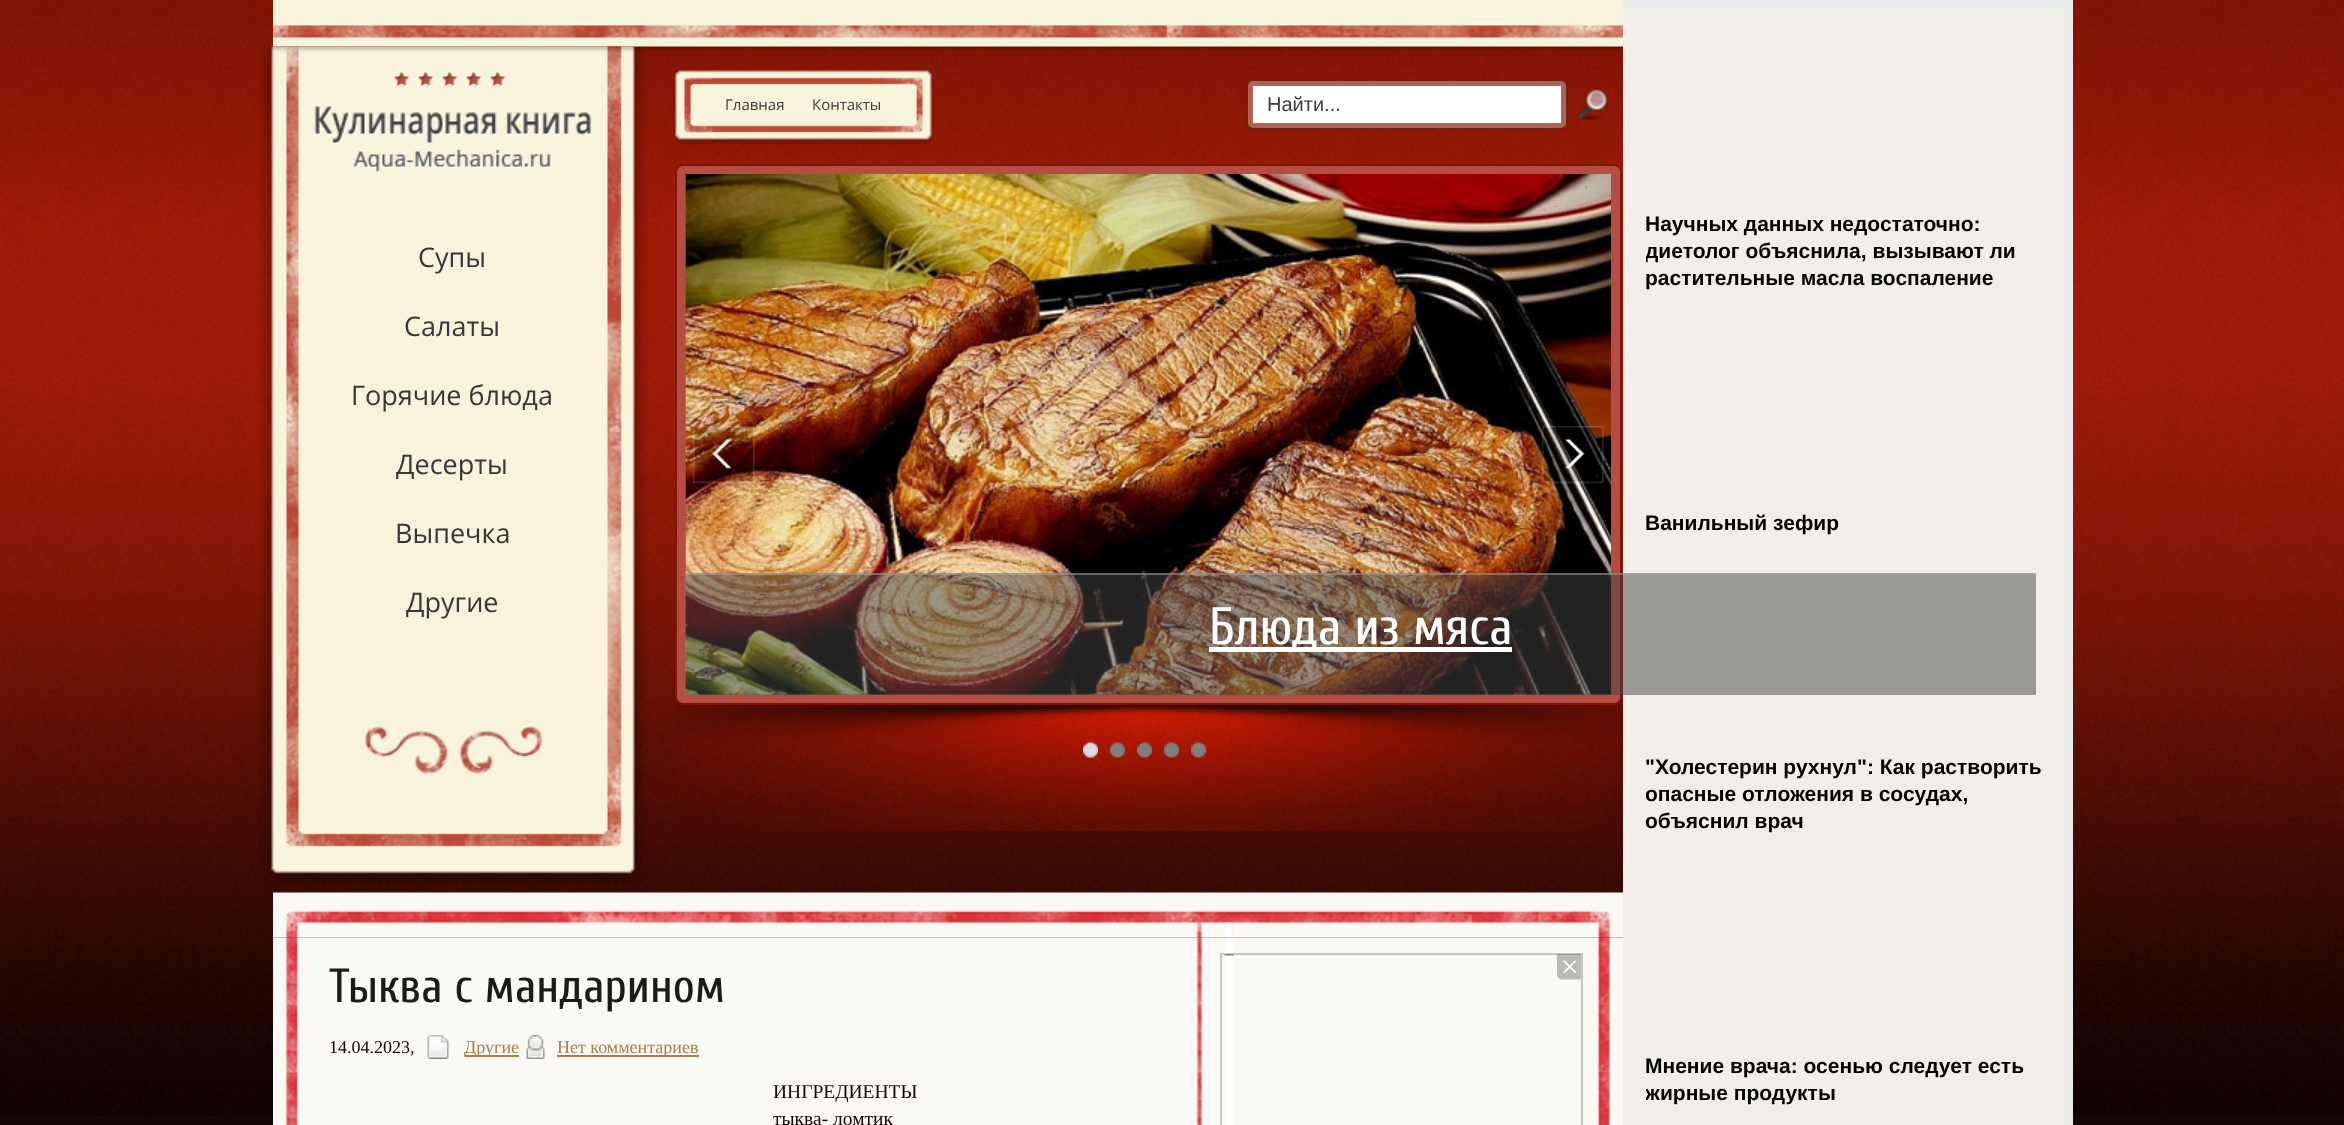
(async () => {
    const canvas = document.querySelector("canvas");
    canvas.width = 2344;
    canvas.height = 1125;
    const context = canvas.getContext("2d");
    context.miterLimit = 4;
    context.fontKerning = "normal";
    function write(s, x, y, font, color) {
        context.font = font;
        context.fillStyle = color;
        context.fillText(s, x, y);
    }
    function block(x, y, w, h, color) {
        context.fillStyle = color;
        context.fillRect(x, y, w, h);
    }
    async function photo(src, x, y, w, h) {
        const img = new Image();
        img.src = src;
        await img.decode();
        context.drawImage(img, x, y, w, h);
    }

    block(0, 0, 2344, 1125, "rgb(19, 7, 4)");
    await photo("media/1.png", 0, 0, 2344, 1116);
    await photo("media/2.png", 273, 0, 1350, 52);
    await photo("media/7.png", 258, 46, 390, 838);
    await photo("media/3.png", 314, 71, 279, 102);
    await photo("media/4.png", 673, 70, 41, 75);
    await photo("media/5.png", 712, 70, 222, 75);
    write("Главная", 725, 110, "15px Open Sans", "rgb(61, 61, 61)");
    write("Контакты", 812, 110, "15px Open Sans", "rgb(61, 61, 61)");
    context.fillStyle = "rgb(51, 51, 51)";
    context.filter = "blur(1.5px)";
    context.beginPath();
    context.roundRect(1248, 81, 318, 47, 5);
    context.fill();
    context.filter = "none";
    context.fillStyle = "rgb(255, 255, 255)";
    context.beginPath();
    context.roundRect(1250.5, 83.5, 313, 42, 2.5);
    context.fill();
    context.strokeStyle = "rgb(174, 99, 85)";
    context.lineWidth = 5;
    context.stroke();
    write("Найти...", 1267, 111, "20px Liberation Sans", "rgb(61, 61, 61)");
    await photo("media/6.png", 1576, 89, 32, 31);
    write("Супы", 418, 267, "27px Open Sans", "rgb(55, 55, 55)");
    write("Салаты", 404, 336, "27px Open Sans", "rgb(55, 55, 55)");
    write("Горячие блюда", 351, 405, "27px Open Sans", "rgb(55, 55, 55)");
    write("Десерты", 396, 474, "27px Open Sans", "rgb(55, 55, 55)");
    write("Выпечка", 395, 543, "27px Open Sans", "rgb(55, 55, 55)");
    write("Другие", 406, 612, "27px Open Sans", "rgb(55, 55, 55)");
    await photo("media/8.png", 675, 705, 948, 126);
    context.fillStyle = "rgb(180, 78, 66)";
    context.beginPath();
    context.roundRect(676, 165, 945, 539, 7);
    context.fill();
    context.strokeStyle = "rgb(129, 21, 5)";
    context.lineWidth = 2;
    context.stroke();
    await photo("media/11.png", 685, 174, 926, 521);
    await photo("media/9.png", 692, 426, 63, 62);
    await photo("media/10.png", 1541, 426, 63, 62);
    block(1623, 8, 443, 1117, "rgb(241, 238, 233)");
    block(686, 573, 1350, 122, "rgba(68, 68, 68, 0.5)");
    block(686, 573, 1350, 2, "rgba(170, 170, 170, 0.5)");
    block(1209, 647, 303, 5, "rgb(255, 255, 255)");
    write("Блюда из мяса", 1209, 644, "52.5px Cuprum", "rgb(255, 255, 255)");
    await photo("media/12.png", 1083, 742, 15, 16);
    await photo("media/13.png", 1110, 742, 15, 16);
    await photo("media/14.png", 1137, 742, 15, 16);
    await photo("media/15.png", 1164, 742, 15, 16);
    await photo("media/16.png", 1191, 742, 15, 16);
    await photo("media/17.png", 273, 892, 1350, 46);
    await photo("media/18.png", 273, 937, 1350, 188);
    write("Тыква с мандарином", 329, 1002, "48px Cuprum", "rgb(27, 27, 27)");
    write("14.04.2023,", 329, 1053, "18px Liberation Serif", "rgb(19, 7, 4)");
    await photo("media/19.png", 427, 1035, 22, 24);
    block(465, 1055, 54, 2, "rgb(168, 126, 76)");
    write("Другие", 464, 1053, "18px Liberation Serif", "rgb(168, 126, 76)");
    await photo("media/20.png", 526, 1035, 19, 24);
    block(557, 1055, 142, 2, "rgb(168, 126, 76)");
    write("Нет комментариев", 557, 1053, "18px Liberation Serif", "rgb(168, 126, 76)");
    write("ИНГРЕДИЕНТЫ", 773, 1098, "19.5px Liberation Serif", "rgb(19, 7, 4)");
    write("тыква- ломтик", 773, 1125, "19.5px Liberation Serif", "rgb(19, 7, 4)");
    context.strokeStyle = "rgb(199, 199, 199)";
    context.strokeRect(1221, 954, 361, 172);
    await photo("media/21.png", 1224, 954, 357, 26);
    block(1623, 0, 450, 8, "rgb(236, 236, 236)");
    block(2066, 0, 7, 1125, "rgb(236, 236, 236)");
    write("Научных данных недостаточно:", 1645, 231, "bold 21px Liberation Sans", "rgb(0, 0, 0)");
    context.save();
    context.beginPath();
    context.rect(1646, 210, 405, 81);
    context.clip();
    write("диетолог объяснила, вызывают ли", 1645, 258, "bold 21px Liberation Sans", "rgb(0, 0, 0)");
    context.restore();
    write("растительные масла воспаление", 1645, 285, "bold 21px Liberation Sans", "rgb(0, 0, 0)");
    write("Ванильный зефир", 1645, 530, "bold 21px Liberation Sans", "rgb(0, 0, 0)");
    write("\"Холестерин рухнул\": Как растворить", 1645, 774, "bold 21px Liberation Sans", "rgb(0, 0, 0)");
    context.save();
    context.beginPath();
    context.rect(1646, 753, 405, 81);
    context.clip();
    write("опасные отложения в сосудах,", 1645, 801, "bold 21px Liberation Sans", "rgb(0, 0, 0)");
    write("объяснил врач", 1645, 828, "bold 21px Liberation Sans", "rgb(0, 0, 0)");
    context.restore();
    write("Мнение врача: осенью следует есть", 1645, 1073, "bold 21px Liberation Sans", "rgb(0, 0, 0)");
    context.save();
    context.beginPath();
    context.rect(1646, 1052, 405, 54);
    context.clip();
    write("жирные продукты", 1645, 1100, "bold 21px Liberation Sans", "rgb(0, 0, 0)");
    context.restore();
})();
